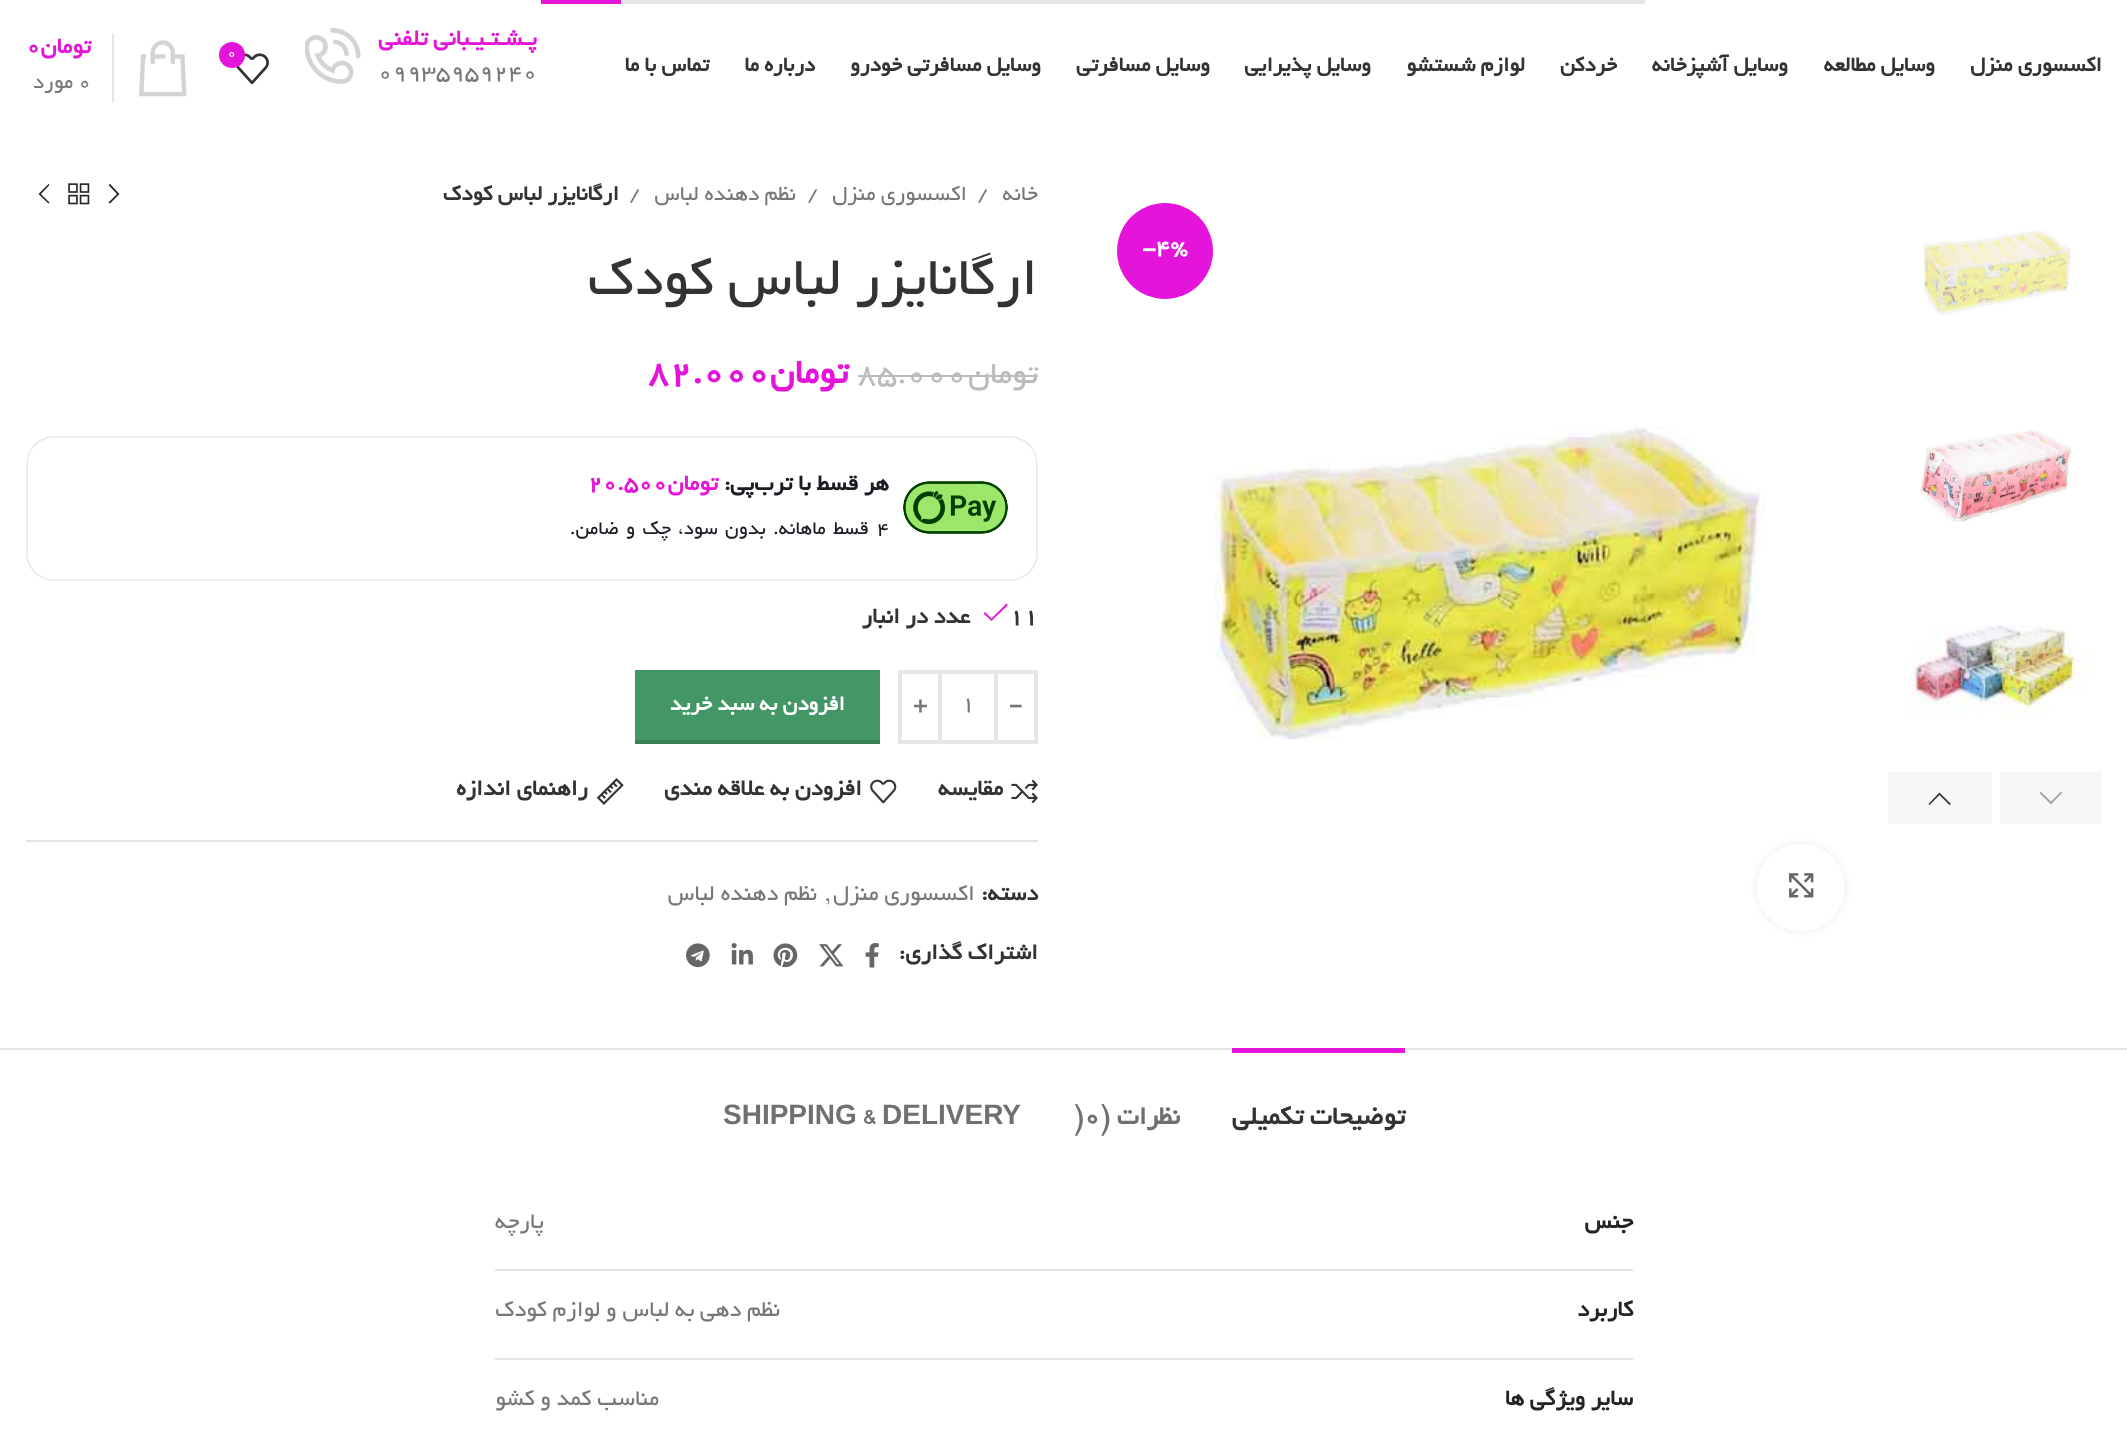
(async () => {
    const canvas = document.querySelector("canvas");
    canvas.width = 2127;
    canvas.height = 1446;
    const context = canvas.getContext("2d");
    context.miterLimit = 4;
    context.fontKerning = "normal";
    function write(s, x, y, font, color) {
        context.font = font;
        context.fillStyle = color;
        context.fillText(s, x, y);
    }
    function block(x, y, w, h, color) {
        context.fillStyle = color;
        context.fillRect(x, y, w, h);
    }
    function card(x, y, w, h, r, color) {
        context.fillStyle = color;
        context.beginPath();
        context.roundRect(x, y, w, h, r);
        context.fill();
    }
    async function photo(src, x, y, w, h) {
        const img = new Image();
        img.src = src;
        await img.decode();
        context.drawImage(img, x, y, w, h);
    }

    block(0, 0, 2127, 1446, "rgb(255, 255, 255)");
    context.strokeStyle = "rgb(230, 230, 230)";
    context.lineWidth = 4;
    context.strokeRect(543, -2, 1100, 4);
    block(541, 0, 80, 4, "rgb(229, 20, 219)");
    context.direction = "rtl";
    write("اکسسوری منزل", 2102, 71, "bold 22.75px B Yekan", "rgb(51, 51, 51)");
    write("وسایل مطالعه", 1935, 71, "bold 22.75px B Yekan", "rgb(51, 51, 51)");
    write("وسایل آشپزخانه", 1788, 71, "bold 22.75px B Yekan", "rgb(51, 51, 51)");
    write("خردکن", 1617, 71, "bold 22.75px B Yekan", "rgb(51, 51, 51)");
    write("لوازم شستشو", 1525, 71, "bold 22.75px B Yekan", "rgb(51, 51, 51)");
    write("وسایل پذیرایی", 1371, 71, "bold 22.75px B Yekan", "rgb(51, 51, 51)");
    write("وسایل مسافرتی", 1210, 71, "bold 22.75px B Yekan", "rgb(51, 51, 51)");
    write("وسایل مسافرتی خودرو", 1041, 71, "bold 22.75px B Yekan", "rgb(51, 51, 51)");
    write("درباره ما", 815, 71, "bold 22.75px B Yekan", "rgb(51, 51, 51)");
    write("تماس با ما", 709, 71, "bold 22.75px B Yekan", "rgb(51, 51, 51)");
    write("پـشـتـیـبانی تلفنی", 537, 45, "bold 24.5px B Yekan", "rgb(229, 20, 219)");
    context.direction = "ltr";
    write("09935959240", 378, 79, "24.5px B Yekan", "rgb(119, 119, 119)");
    await photo("media/1.png", 305, 28, 56, 56);
    await photo("media/2.png", 236, 53, 33, 31);
    context.fillStyle = "rgb(229, 20, 219)";
    context.beginPath();
    context.arc(232, 55, 13, 0, Math.PI * 2);
    context.fill();
    write("0", 227, 57, "16px B Yekan", "rgb(255, 255, 255)");
    await photo("media/3.png", 139, 40, 48, 57);
    block(112, 33, 2, 70, "rgb(230, 230, 230)");
    context.direction = "rtl";
    write("تومان", 91, 53, "bold 24.5px B Yekan", "rgb(229, 20, 219)");
    context.direction = "ltr";
    write("0", 26, 53, "bold 24.5px B Yekan", "rgb(229, 20, 219)");
    write("0", 78, 88, "22.75px B Yekan", "rgb(119, 119, 119)");
    context.direction = "rtl";
    write("مورد", 73, 88, "22.75px B Yekan", "rgb(119, 119, 119)");
    await photo("media/4.png", 1923, 230, 148, 85);
    await photo("media/5.png", 1920, 430, 152, 92);
    await photo("media/6.png", 1910, 625, 184, 92);
    block(2000, 772, 102, 52, "rgb(247, 247, 247)");
    context.fillStyle = "rgb(165, 165, 165)";
    context.beginPath();
    context.moveTo(2061, 791.5);
    context.lineTo(2051, 801.5);
    context.lineTo(2040.5, 791.5);
    context.lineTo(2039.5, 793);
    context.lineTo(2051, 804.5);
    context.lineTo(2062, 793);
    context.closePath();
    context.fill();
    block(1888, 772, 104, 52, "rgb(247, 247, 247)");
    context.fillStyle = "rgb(51, 51, 51)";
    context.beginPath();
    context.moveTo(1949.5, 805);
    context.lineTo(1951, 804);
    context.lineTo(1939.5, 792.5);
    context.lineTo(1928.5, 804);
    context.lineTo(1929.5, 805);
    context.lineTo(1939.5, 795);
    context.closePath();
    context.fill();
    context.fillStyle = "rgb(229, 20, 219)";
    context.beginPath();
    context.arc(1165, 251, 48, 0, Math.PI * 2);
    context.fill();
    context.direction = "ltr";
    write("-4%", 1142, 254, "bold 24.5px B Yekan", "rgb(255, 255, 255)");
    await photo("media/7.png", 1215, 426, 552, 314);
    context.fillStyle = "rgba(0, 0, 0, 0.08)";
    context.filter = "blur(4.5px)";
    context.beginPath();
    context.roundRect(1757, 844, 88, 87, 43.5);
    context.fill();
    context.filter = "none";
    card(1757, 844, 88, 87, 43.5, "rgb(255, 255, 255)");
    await photo("media/8.png", 1789, 873, 25, 25);
    context.direction = "rtl";
    write("خانه", 1038, 200, "23.25px B Yekan", "rgb(119, 119, 119)");
    context.direction = "ltr";
    write("/", 977, 200, "23.25px B Yekan", "rgb(119, 119, 119)");
    context.direction = "rtl";
    write("اکسسوری منزل", 967, 200, "23.25px B Yekan", "rgb(119, 119, 119)");
    context.direction = "ltr";
    write("/", 807, 200, "23.25px B Yekan", "rgb(119, 119, 119)");
    context.direction = "rtl";
    write("نظم دهنده لباس", 796, 200, "23.25px B Yekan", "rgb(119, 119, 119)");
    context.direction = "ltr";
    write("/", 629, 200, "23.25px B Yekan", "rgb(119, 119, 119)");
    context.direction = "rtl";
    write("ارگانایزر لباس کودک", 619, 200, "bold 23.25px B Yekan", "rgb(51, 51, 51)");
    context.fillStyle = "rgb(36, 36, 36)";
    context.beginPath();
    context.moveTo(108.5, 185);
    context.lineTo(117, 194);
    context.lineTo(108.5, 202.5);
    context.lineTo(110, 203.5);
    context.lineTo(119.5, 194);
    context.lineTo(110, 184);
    context.closePath();
    context.fill();
    await photo("media/9.png", 68, 183, 22, 22);
    context.beginPath();
    context.moveTo(49.5, 185);
    context.lineTo(48.5, 184);
    context.lineTo(38.5, 194);
    context.lineTo(48.5, 203.5);
    context.lineTo(49.5, 202.5);
    context.lineTo(41, 194);
    context.closePath();
    context.fill();
    write("ارگانایزر لباس کودک", 1038, 294, "59.5px B Yekan", "rgb(51, 51, 51)");
    write("تومان", 1038, 383, "34px B Yekan", "rgb(187, 187, 187)");
    block(968, 375, 70, 2, "rgb(187, 187, 187)");
    context.direction = "ltr";
    write("85.000", 857, 383, "34px B Yekan", "rgb(187, 187, 187)");
    block(858, 375, 110, 2, "rgb(187, 187, 187)");
    context.direction = "rtl";
    write("تومان", 848, 383, "bold 38px B Yekan", "rgb(229, 20, 219)");
    context.direction = "ltr";
    write("82.000", 647, 383, "bold 38px B Yekan", "rgb(229, 20, 219)");
    context.beginPath();
    context.roundRect(27, 437, 1010, 143, 27);
    context.strokeStyle = "rgb(235, 236, 242)";
    context.lineWidth = 2;
    context.stroke();
    await photo("media/10.png", 903, 481, 105, 53);
    context.direction = "rtl";
    write("هر قسط با ترب‌پی:", 889, 490, "bold 24.5px B Yekan", "rgb(26, 28, 35)");
    write("تومان", 718, 490, "bold 24.5px B Yekan", "rgb(229, 20, 219)");
    context.direction = "ltr";
    write("20.500", 588, 490, "bold 24.5px B Yekan", "rgb(229, 20, 219)");
    context.letterSpacing = "-0.6px";
    write("۴", 877, 534, "21px B Yekan", "rgb(26, 28, 35)");
    context.wordSpacing = "3px";
    context.direction = "rtl";
    write("قسط ماهانه. بدون سود، چک و ضامن.", 869, 534, "21px B Yekan", "rgb(26, 28, 35)");
    context.letterSpacing = "0px";
    context.wordSpacing = "0px";
    context.direction = "ltr";
    write("11", 1009, 623, "bold 24.5px B Yekan", "rgb(51, 51, 51)");
    context.fillStyle = "rgb(229, 20, 219)";
    context.beginPath();
    context.moveTo(1008, 605);
    context.lineTo(1006.5, 603.5);
    context.lineTo(991.5, 618.5);
    context.lineTo(985, 612);
    context.lineTo(983.5, 613.5);
    context.lineTo(991.5, 621);
    context.closePath();
    context.fill();
    context.direction = "rtl";
    write("عدد در انبار", 970, 623, "bold 24.5px B Yekan", "rgb(51, 51, 51)");
    context.strokeStyle = "rgb(230, 230, 230)";
    context.lineWidth = 4;
    context.strokeRect(996, 672, 40, 70);
    context.direction = "ltr";
    write("-", 1009, 710, "bold 22.75px B Yekan", "rgb(119, 119, 119)");
    block(942, 670, 52, 4, "rgb(230, 230, 230)");
    block(942, 740, 52, 4, "rgb(230, 230, 230)");
    write("1", 961, 710, "24.5px B Yekan", "rgb(119, 119, 119)");
    context.strokeRect(900, 672, 40, 70);
    write("+", 913, 710, "bold 22.75px B Yekan", "rgb(119, 119, 119)");
    block(635, 670, 245, 70, "rgb(67, 150, 101)");
    block(635, 740, 245, 4, "rgb(57, 128, 86)");
    context.direction = "rtl";
    write("افزودن به سبد خرید", 845, 710, "bold 22.75px B Yekan", "rgb(255, 255, 255)");
    await photo("media/11.png", 1011, 779, 27, 25);
    write("مقايسه", 1003, 795, "bold 24.5px B Yekan", "rgb(51, 51, 51)");
    await photo("media/12.png", 870, 779, 27, 25);
    write("افزودن به علاقه مندی", 862, 795, "bold 24.5px B Yekan", "rgb(51, 51, 51)");
    await photo("media/13.png", 596, 778, 28, 27);
    write("راهنمای اندازه", 588, 795, "bold 24.5px B Yekan", "rgb(51, 51, 51)");
    block(26, 840, 1012, 2, "rgb(228, 228, 228)");
    write("دسته:", 1038, 900, "bold 24.5px B Yekan", "rgb(51, 51, 51)");
    write("اکسسوری منزل", 975, 900, "24.5px B Yekan", "rgb(119, 119, 119)");
    context.direction = "ltr";
    write(",", 826, 900, "24.5px B Yekan", "rgb(119, 119, 119)");
    context.direction = "rtl";
    write("نظم دهنده لباس", 817, 900, "24.5px B Yekan", "rgb(119, 119, 119)");
    write("اشتراک گذاری:", 1038, 959, "bold 24.5px B Yekan", "rgb(51, 51, 51)");
    await photo("media/14.png", 865, 943, 14, 25);
    await photo("media/15.png", 819, 944, 25, 23);
    await photo("media/16.png", 773, 943, 25, 25);
    await photo("media/17.png", 731, 943, 22, 22);
    await photo("media/18.png", 686, 943, 24, 25);
    block(0, 1048, 2127, 2, "rgb(228, 228, 228)");
    block(1232, 1048, 173, 5, "rgb(229, 20, 219)");
    write("توضیحات تکمیلی", 1405, 1124, "bold 28px B Yekan", "rgb(51, 51, 51)");
    write("نظرات (", 1180, 1124, "bold 28px B Yekan", "rgb(112, 112, 112)");
    context.direction = "ltr";
    write(")0", 1074, 1124, "bold 28px B Yekan", "rgb(112, 112, 112)");
    write("DELIVERY", 882, 1124, "bold 28px Liberation Sans", "rgb(112, 112, 112)");
    write("&", 863, 1124, "bold 28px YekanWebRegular", "rgb(112, 112, 112)");
    write("SHIPPING", 723, 1124, "bold 28px Liberation Sans", "rgb(112, 112, 112)");
    block(495, 1269, 1138, 2, "rgb(228, 228, 228)");
    context.direction = "rtl";
    write("جنس", 1633, 1228, "bold 24.5px B Yekan", "rgb(36, 36, 36)");
    write("پارچه", 544, 1228, "24.5px B Yekan", "rgb(119, 119, 119)");
    block(495, 1358, 1138, 2, "rgb(228, 228, 228)");
    write("کاربرد", 1633, 1316, "bold 24.5px B Yekan", "rgb(36, 36, 36)");
    write("نظم دهی به لباس و لوازم کودک", 780, 1316, "24.5px B Yekan", "rgb(119, 119, 119)");
    write("سایر ویژگی ها", 1633, 1405, "bold 24.5px B Yekan", "rgb(36, 36, 36)");
    write("مناسب کمد و کشو", 659, 1405, "24.5px B Yekan", "rgb(119, 119, 119)");
})();
